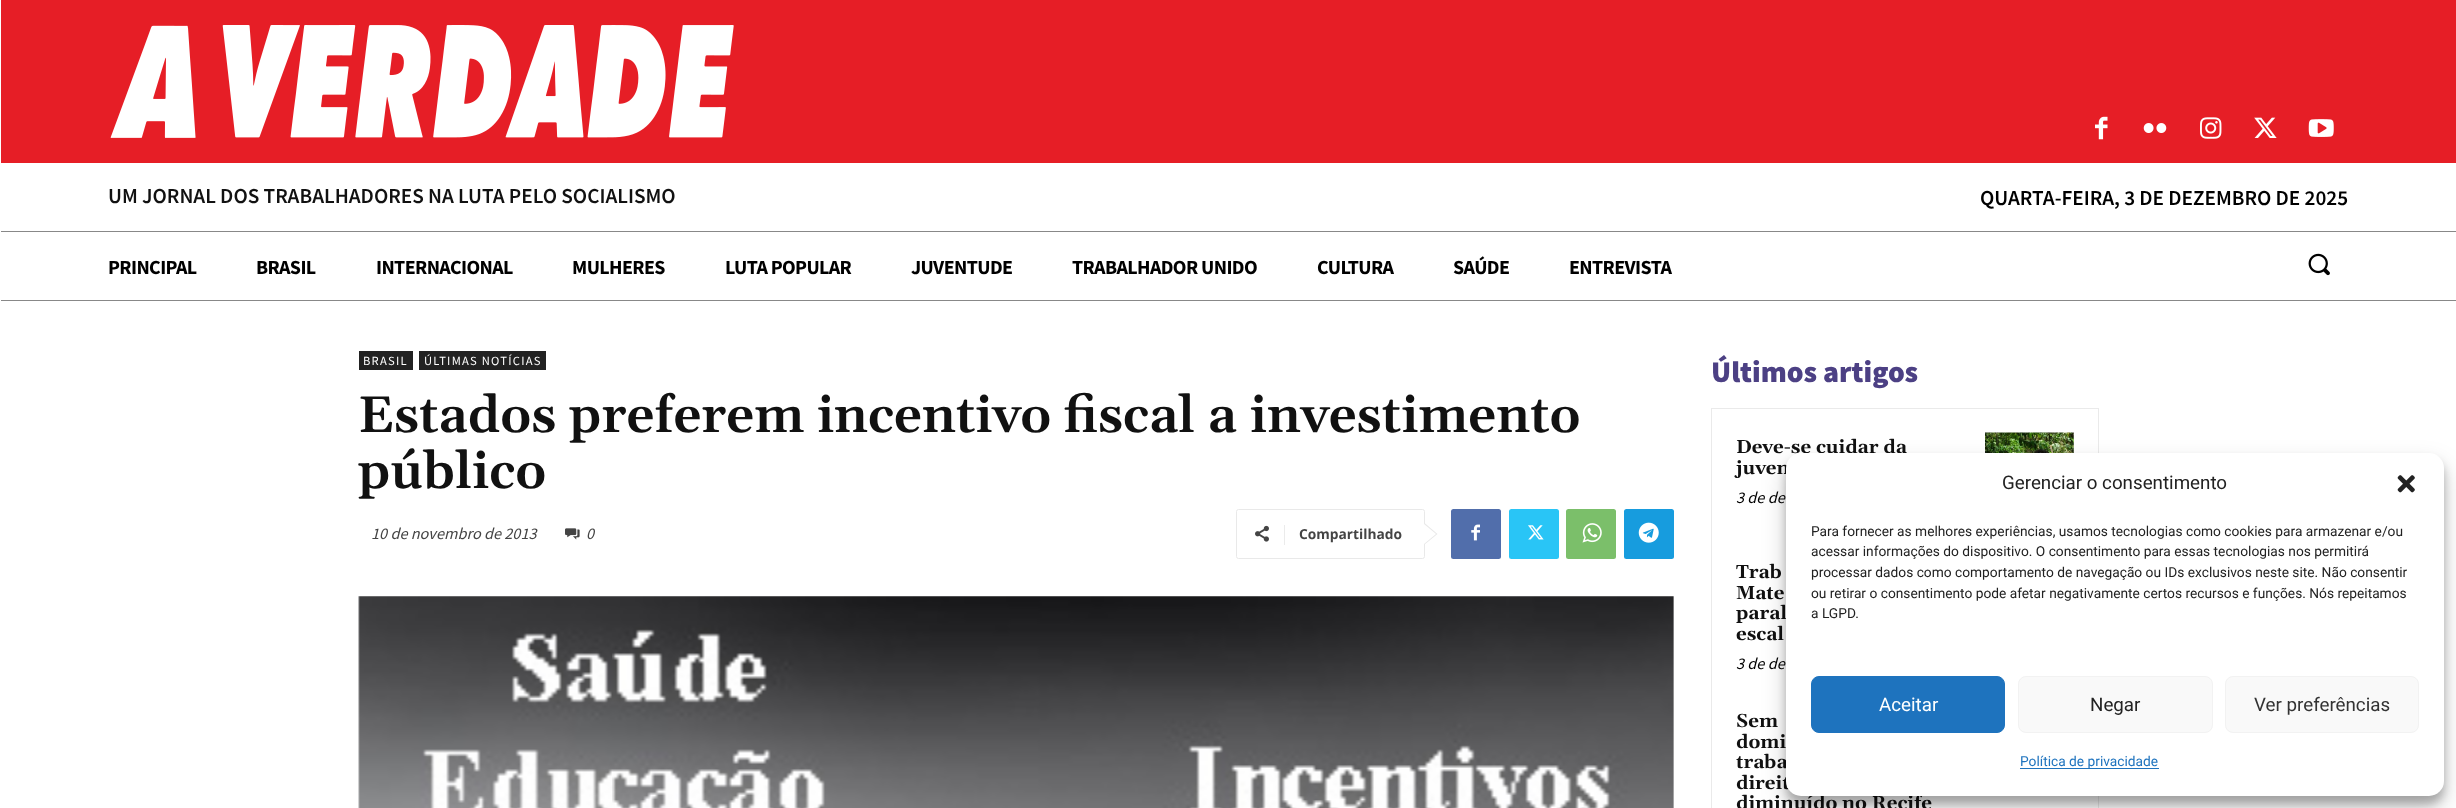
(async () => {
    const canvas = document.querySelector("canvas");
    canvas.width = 2456;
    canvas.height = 808;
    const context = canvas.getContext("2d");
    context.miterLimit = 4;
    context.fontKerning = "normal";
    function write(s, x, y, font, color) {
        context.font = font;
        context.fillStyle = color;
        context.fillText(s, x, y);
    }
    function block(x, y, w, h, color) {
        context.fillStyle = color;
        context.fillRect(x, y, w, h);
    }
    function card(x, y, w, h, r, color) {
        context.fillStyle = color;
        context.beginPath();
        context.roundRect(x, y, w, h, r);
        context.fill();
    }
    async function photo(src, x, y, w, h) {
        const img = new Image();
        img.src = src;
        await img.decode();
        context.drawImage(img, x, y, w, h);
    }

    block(0, 0, 2456, 808, "rgb(255, 255, 255)");
    block(1, 0, 2455, 163, "rgb(230, 30, 38)");
    await photo("media/1.png", 110, 25, 624, 113);
    await photo("media/2.png", 2095, 116, 13, 24);
    await photo("media/3.png", 2143, 123, 24, 10);
    await photo("media/4.png", 2200, 117, 22, 22);
    await photo("media/5.png", 2254, 117, 23, 21);
    await photo("media/6.png", 2308, 119, 26, 18);
    write("UM JORNAL DOS TRABALHADORES NA LUTA PELO SOCIALISMO", 108, 203, "600 21.25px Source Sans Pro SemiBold", "rgb(17, 17, 17)");
    write("QUARTA-FEIRA, 3 DE DEZEMBRO DE 2025", 1980, 205, "600 21.25px Source Sans Pro SemiBold", "rgb(0, 0, 0)");
    block(1, 231, 2455, 1, "rgb(136, 136, 136)");
    context.letterSpacing = "-0.6px";
    write("PRINCIPAL", 108, 274, "bold 20px Source Sans Pro", "rgb(0, 0, 0)");
    write("BRASIL", 256, 274, "bold 20px Source Sans Pro", "rgb(0, 0, 0)");
    write("INTERNACIONAL", 376, 274, "bold 20px Source Sans Pro", "rgb(0, 0, 0)");
    write("MULHERES", 572, 274, "bold 20px Source Sans Pro", "rgb(0, 0, 0)");
    write("LUTA POPULAR", 725, 274, "bold 20px Source Sans Pro", "rgb(0, 0, 0)");
    write("JUVENTUDE", 911, 274, "bold 20px Source Sans Pro", "rgb(0, 0, 0)");
    write("TRABALHADOR UNIDO", 1072, 274, "bold 20px Source Sans Pro", "rgb(0, 0, 0)");
    write("CULTURA", 1317, 274, "bold 20px Source Sans Pro", "rgb(0, 0, 0)");
    write("SAÚDE", 1453, 274, "bold 20px Source Sans Pro", "rgb(0, 0, 0)");
    write("ENTREVISTA", 1569, 274, "bold 20px Source Sans Pro", "rgb(0, 0, 0)");
    await photo("media/7.png", 2308, 253, 22, 23);
    block(1, 300, 2455, 1, "rgb(136, 136, 136)");
    block(359, 351, 54, 19, "rgb(34, 34, 34)");
    context.letterSpacing = "1.25px";
    write("BRASIL", 363, 365, "12.5px Source Sans Pro", "rgb(255, 255, 255)");
    block(419, 351, 127, 19, "rgb(34, 34, 34)");
    write("ÚLTIMAS NOTÍCIAS", 424, 365, "12.5px Source Sans Pro", "rgb(255, 255, 255)");
    context.letterSpacing = "0px";
    write("Estados preferem incentivo fiscal a investimento", 358, 432, "600 51.25px Gelasio", "rgb(17, 17, 17)");
    write("público", 358, 488, "600 51.25px Gelasio", "rgb(17, 17, 17)");
    write("10 de novembro de 2013", 371, 539, "italic 16.25px Source Sans Pro", "rgb(68, 68, 68)");
    await photo("media/8.png", 565, 528, 15, 12);
    write("0", 586, 539, "italic 16.25px Source Sans Pro", "rgb(68, 68, 68)");
    context.beginPath();
    context.roundRect(1236.5, 509.5, 188, 49, 2);
    context.strokeStyle = "rgb(233, 233, 233)";
    context.stroke();
    context.fillStyle = "rgb(233, 233, 233)";
    context.beginPath();
    context.moveTo(1424, 545);
    context.lineTo(1424, 522.5);
    context.lineTo(1437.5, 534);
    context.closePath();
    context.fill();
    await photo("media/9.png", 1255, 525, 14, 17);
    block(1284, 525, 1, 20, "rgb(235, 235, 235)");
    write("Compartilhado", 1299, 539, "bold 13.75px Open Sans", "rgb(68, 68, 68)");
    context.fillStyle = "rgb(255, 255, 255)";
    context.beginPath();
    context.moveTo(1424, 544);
    context.lineTo(1424, 524);
    context.lineTo(1436, 534);
    context.closePath();
    context.fill();
    card(1451, 509, 50, 50, 2.5, "rgb(81, 110, 171)");
    await photo("media/10.png", 1471, 524, 9, 17);
    card(1509, 509, 50, 50, 2.5, "rgb(41, 197, 246)");
    await photo("media/11.png", 1528, 525, 16, 15);
    card(1566, 509, 50, 50, 2.5, "rgb(123, 191, 106)");
    await photo("media/12.png", 1582, 523, 20, 20);
    card(1624, 509, 50, 50, 2.5, "rgb(23, 156, 222)");
    await photo("media/13.png", 1638, 522, 21, 21);
    await photo("media/14.png", 358, 596, 1316, 212);
    write("Últimos artigos", 1711, 382, "900 30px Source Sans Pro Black", "rgb(76, 64, 132)");
    context.strokeStyle = "rgb(234, 234, 234)";
    context.strokeRect(1711.5, 408.5, 387, 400);
    write("Deve-se cuidar da", 1736, 453, "bold 18.75px Gelasio", "rgb(17, 17, 17)");
    write("juven", 1736, 474, "bold 18.75px Gelasio", "rgb(17, 17, 17)");
    write("3 de de", 1736, 503, "italic 16.25px Source Sans Pro", "rgb(0, 0, 0)");
    await photo("media/15.png", 1985, 432, 89, 21);
    write("Trab", 1736, 578, "bold 18.75px Gelasio", "rgb(17, 17, 17)");
    write("Mate", 1736, 599, "bold 18.75px Gelasio", "rgb(17, 17, 17)");
    write("paral", 1736, 619, "bold 18.75px Gelasio", "rgb(17, 17, 17)");
    write("escal", 1736, 640, "bold 18.75px Gelasio", "rgb(17, 17, 17)");
    write("3 de de", 1736, 669, "italic 16.25px Source Sans Pro", "rgb(0, 0, 0)");
    write("Sem", 1736, 727, "bold 18.75px Gelasio", "rgb(17, 17, 17)");
    write("domi", 1736, 748, "bold 18.75px Gelasio", "rgb(17, 17, 17)");
    write("traba", 1736, 768, "bold 18.75px Gelasio", "rgb(17, 17, 17)");
    write("direit", 1736, 789, "bold 18.75px Gelasio", "rgb(17, 17, 17)");
    write("diminuído no Recife", 1736, 809, "bold 18.75px Gelasio", "rgb(17, 17, 17)");
    context.fillStyle = "rgba(0, 0, 0, 0.23)";
    context.filter = "blur(4px)";
    context.beginPath();
    context.roundRect(1786, 460, 658, 344, 15);
    context.fill();
    context.filter = "none";
    context.fillStyle = "rgba(0, 0, 0, 0.19)";
    context.filter = "blur(12.5px)";
    context.beginPath();
    context.roundRect(1786, 465, 658, 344, 15);
    context.fill();
    context.filter = "none";
    card(1786, 453, 658, 343, 15, "rgb(255, 255, 255)");
    write("Gerenciar o consentimento", 2002, 489, "18.75px Roboto", "rgb(34, 34, 34)");
    await photo("media/16.png", 2397, 475, 18, 18);
    write("Para fornecer as melhores experiências, usamos tecnologias como cookies para armazenar e/ou", 1811, 536, "13.75px Roboto", "rgb(34, 34, 34)");
    write("acessar informações do dispositivo. O consentimento para essas tecnologias nos permitirá", 1811, 556, "13.75px Roboto", "rgb(34, 34, 34)");
    write("processar dados como comportamento de navegação ou IDs exclusivos neste site. Não consentir", 1811, 577, "13.75px Roboto", "rgb(34, 34, 34)");
    write("ou retirar o consentimento pode afetar negativamente certos recursos e funções. Nós repeitamos", 1811, 598, "13.75px Roboto", "rgb(34, 34, 34)");
    write("a LGPD.", 1811, 618, "13.75px Roboto", "rgb(34, 34, 34)");
    context.fillStyle = "rgb(30, 115, 190)";
    context.beginPath();
    context.roundRect(1811.5, 676.5, 193, 56, 7.5);
    context.fill();
    context.strokeStyle = "rgb(30, 115, 190)";
    context.stroke();
    write("Aceitar", 1879, 711, "18.75px Roboto", "rgb(255, 255, 255)");
    context.fillStyle = "rgb(249, 249, 249)";
    context.beginPath();
    context.roundRect(2018.5, 676.5, 194, 56, 7.5);
    context.fill();
    context.strokeStyle = "rgb(242, 242, 242)";
    context.stroke();
    write("Negar", 2090, 711, "18.75px Roboto", "rgb(34, 34, 34)");
    context.fillStyle = "rgb(249, 249, 249)";
    context.beginPath();
    context.roundRect(2225.5, 676.5, 193, 56, 7.5);
    context.fill();
    context.stroke();
    write("Ver preferências", 2254, 711, "18.75px Roboto", "rgb(51, 51, 51)");
    block(2020, 768, 139, 1, "rgb(30, 115, 190)");
    write("Política de privacidade", 2020, 766, "13.75px Roboto", "rgb(30, 115, 190)");
})();
